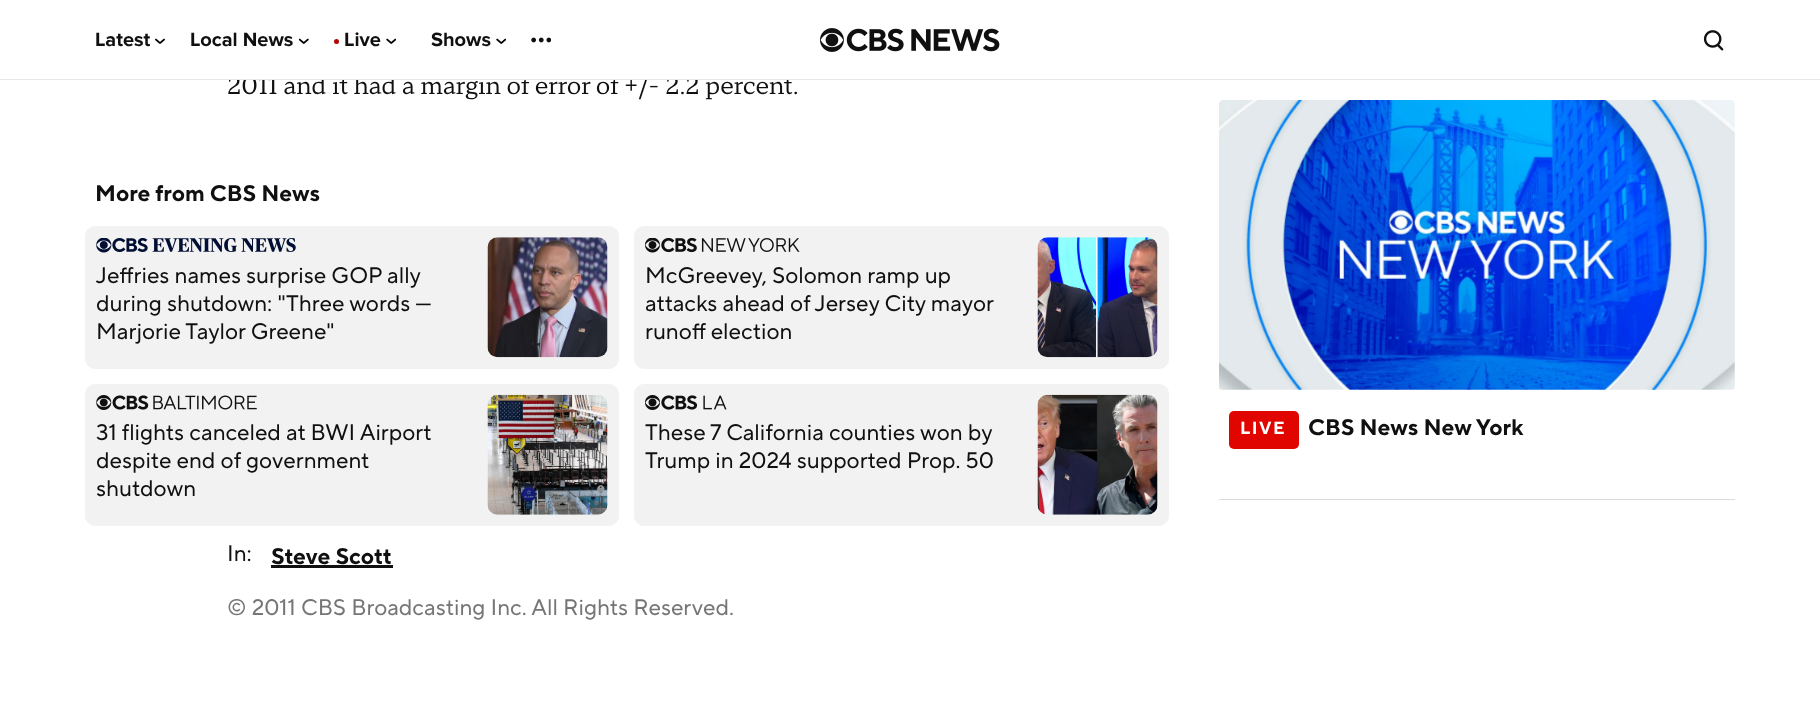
(async () => {
    const canvas = document.querySelector("canvas");
    canvas.width = 1820;
    canvas.height = 728;
    const context = canvas.getContext("2d");
    context.miterLimit = 4;
    context.fontKerning = "normal";
    function write(s, x, y, font, color) {
        context.font = font;
        context.fillStyle = color;
        context.fillText(s, x, y);
    }
    function block(x, y, w, h, color) {
        context.fillStyle = color;
        context.fillRect(x, y, w, h);
    }
    function card(x, y, w, h, r, color) {
        context.fillStyle = color;
        context.beginPath();
        context.roundRect(x, y, w, h, r);
        context.fill();
    }
    async function photo(src, x, y, w, h) {
        const img = new Image();
        img.src = src;
        await img.decode();
        context.drawImage(img, x, y, w, h);
    }

    block(0, 0, 1820, 728, "rgb(255, 255, 255)");
    write("2011 and it had a margin of error of +/- 2.2 percent.", 227, 94, "25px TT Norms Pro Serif", "rgb(16, 16, 16)");
    block(228, 76, 561, 3, "rgb(255, 255, 255)");
    block(0, 79, 1820, 1, "rgb(232, 232, 232)");
    write("Latest", 95, 46, "bold 20px Proxima Nova", "rgb(16, 16, 16)");
    await photo("media/1.png", 155, 38, 10, 6);
    write("Local News", 190, 46, "bold 20px Proxima Nova", "rgb(16, 16, 16)");
    await photo("media/2.png", 299, 38, 10, 6);
    context.fillStyle = "rgb(182, 5, 5)";
    context.beginPath();
    context.arc(336.5, 41.5, 2.5, 0, Math.PI * 2);
    context.fill();
    write("Live", 344, 46, "bold 20px Proxima Nova", "rgb(16, 16, 16)");
    await photo("media/3.png", 386, 38, 10, 6);
    write("Shows", 431, 46, "bold 20px Proxima Nova", "rgb(16, 16, 16)");
    await photo("media/3.png", 496, 38, 10, 6);
    await photo("media/4.png", 531, 37, 20, 6);
    await photo("media/5.png", 820, 28, 180, 24);
    await photo("media/6.png", 1703, 30, 21, 21);
    write("More from CBS News", 95, 201, "bold 22.5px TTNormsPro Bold", "rgb(16, 16, 16)");
    context.fillStyle = "rgb(242, 242, 242)";
    context.beginPath();
    context.roundRect(85.5, 226.5, 533, 142, 9.5);
    context.fill();
    context.strokeStyle = "rgb(242, 242, 242)";
    context.stroke();
    await photo("media/7.png", 96, 238, 200, 15);
    write("Jeffries names surprise GOP ally", 96, 283, "22.5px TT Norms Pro", "rgb(16, 16, 16)");
    write("during shutdown: \"Three words —", 96, 311, "22.5px TT Norms Pro", "rgb(16, 16, 16)");
    write("Marjorie Taylor Greene\"", 96, 339, "22.5px TT Norms Pro", "rgb(16, 16, 16)");
    await photo("media/8.png", 487, 237, 121, 121);
    context.fillStyle = "rgb(242, 242, 242)";
    context.beginPath();
    context.roundRect(634.5, 226.5, 534, 142, 9.5);
    context.fill();
    context.stroke();
    await photo("media/9.png", 645, 238, 155, 15);
    write("McGreevey, Solomon ramp up", 645, 283, "22.5px TT Norms Pro", "rgb(16, 16, 16)");
    write("attacks ahead of Jersey City mayor", 645, 311, "22.5px TT Norms Pro", "rgb(16, 16, 16)");
    write("runoff election", 645, 339, "22.5px TT Norms Pro", "rgb(16, 16, 16)");
    await photo("media/10.png", 1037, 237, 121, 121);
    context.fillStyle = "rgb(242, 242, 242)";
    context.beginPath();
    context.roundRect(85.5, 384.5, 533, 141, 9.5);
    context.fill();
    context.stroke();
    await photo("media/11.png", 96, 395, 161, 15);
    write("31 flights canceled at BWI Airport", 96, 440, "22.5px TT Norms Pro", "rgb(16, 16, 16)");
    write("despite end of government", 96, 468, "22.5px TT Norms Pro", "rgb(16, 16, 16)");
    write("shutdown", 96, 496, "22.5px TT Norms Pro", "rgb(16, 16, 16)");
    await photo("media/12.png", 487, 394, 121, 121);
    context.fillStyle = "rgb(242, 242, 242)";
    context.beginPath();
    context.roundRect(634.5, 384.5, 534, 141, 9.5);
    context.fill();
    context.stroke();
    await photo("media/13.png", 645, 395, 82, 15);
    write("These 7 California counties won by", 645, 440, "22.5px TT Norms Pro", "rgb(16, 16, 16)");
    write("Trump in 2024 supported Prop. 50", 645, 468, "22.5px TT Norms Pro", "rgb(16, 16, 16)");
    await photo("media/14.png", 1037, 394, 121, 121);
    write("In:", 227, 561, "22.5px TT Norms Pro", "rgb(16, 16, 16)");
    write("Steve Scott", 271, 564, "bold 22.5px TTNormsPro Bold", "rgb(16, 16, 16)");
    block(271, 565, 122, 3, "rgb(16, 16, 16)");
    write("© 2011 CBS Broadcasting Inc. All Rights Reserved.", 227, 615, "22.5px TT Norms Pro", "rgb(118, 118, 118)");
    block(1219, 499, 516, 1, "rgb(220, 220, 220)");
    await photo("media/15.png", 1219, 100, 516, 290);
    card(1229, 411, 70, 38, 5, "rgb(225, 5, 0)");
    context.letterSpacing = "1.5px";
    write("LIVE", 1240, 434, "bold 17.5px TTNormsPro Bold", "rgb(255, 255, 255)");
    context.letterSpacing = "0px";
    write("CBS News New York", 1308, 435, "bold 22.5px TTNormsPro Bold", "rgb(16, 16, 16)");
})();
